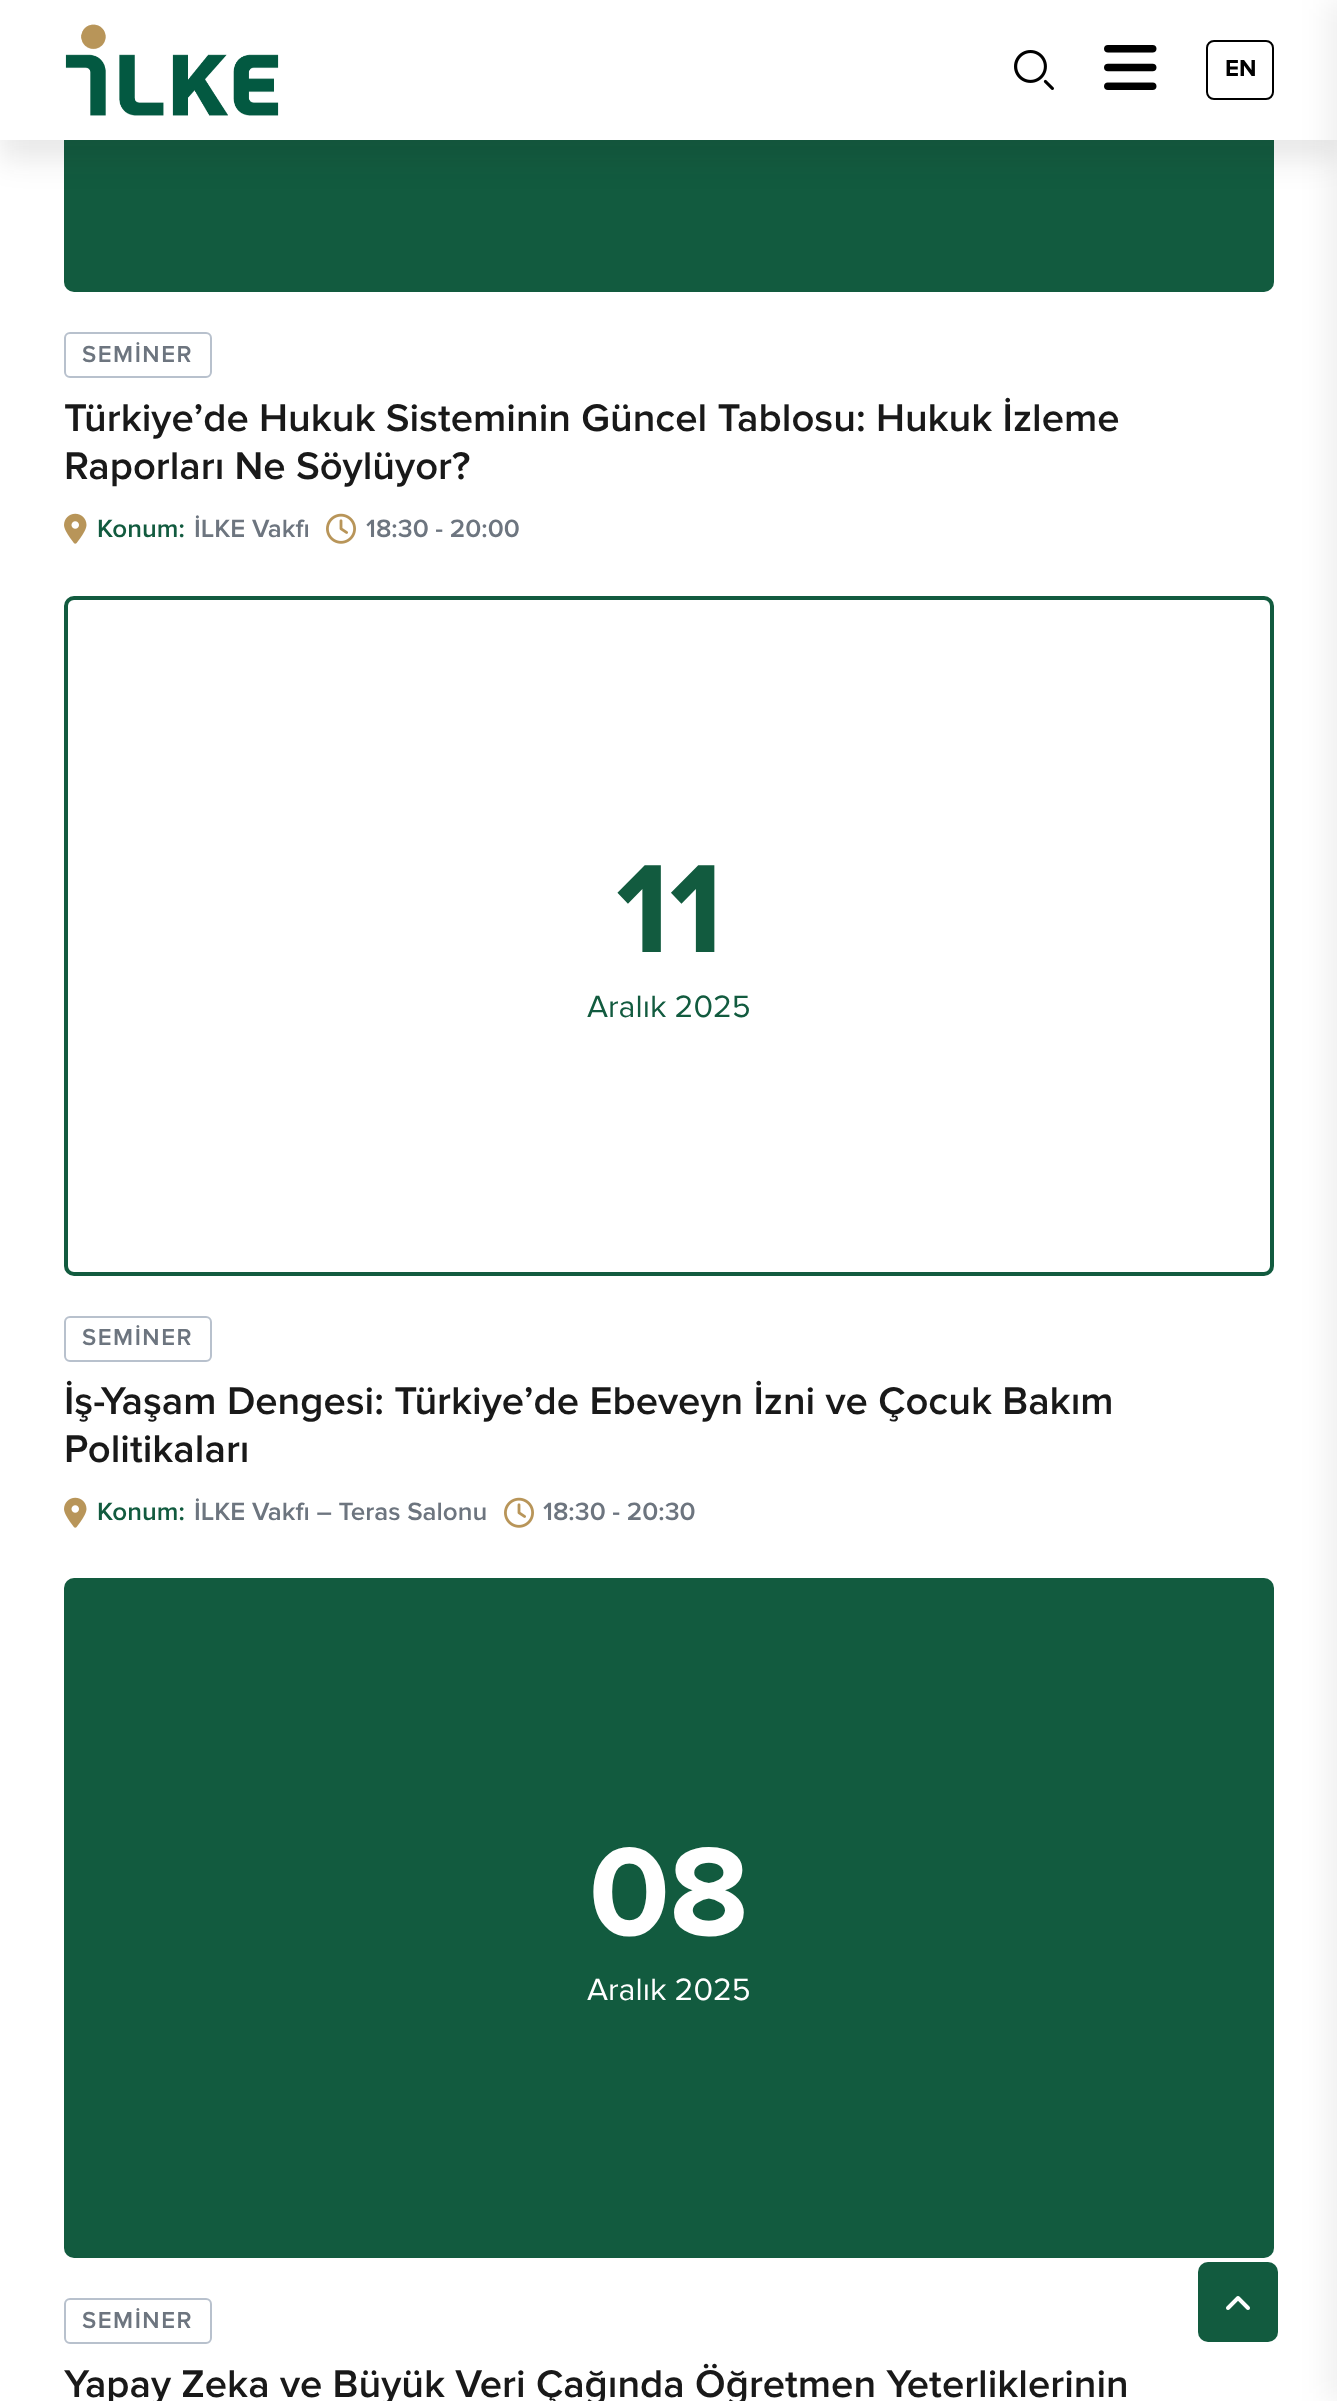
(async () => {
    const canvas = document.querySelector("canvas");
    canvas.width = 1337;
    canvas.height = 2401;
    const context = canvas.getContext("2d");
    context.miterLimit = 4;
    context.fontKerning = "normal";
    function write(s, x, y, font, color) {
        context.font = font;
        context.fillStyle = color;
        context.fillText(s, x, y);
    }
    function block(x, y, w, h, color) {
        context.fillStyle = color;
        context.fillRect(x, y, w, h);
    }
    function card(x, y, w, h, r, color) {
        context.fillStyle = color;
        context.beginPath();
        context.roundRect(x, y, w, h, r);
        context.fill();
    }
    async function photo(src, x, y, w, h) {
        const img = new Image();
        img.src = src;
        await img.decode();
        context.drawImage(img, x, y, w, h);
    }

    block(0, 0, 1337, 2401, "rgb(255, 255, 255)");
    card(64, -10, 1210, 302, 10, "rgb(18, 91, 63)");
    context.fillStyle = "rgba(25, 25, 25, 0.1)";
    context.filter = "blur(15px)";
    context.beginPath();
    context.rect(0, 20, 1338, 140);
    context.fill();
    context.filter = "none";
    block(0, 0, 1337, 140, "rgb(255, 255, 255)");
    await photo("media/1.png", 65, 24, 214, 92);
    await photo("media/2.png", 1014, 50, 40, 40);
    await photo("media/3.png", 1104, 45, 53, 45);
    context.beginPath();
    context.roundRect(1207, 41, 66, 58, 7);
    context.strokeStyle = "rgb(0, 0, 0)";
    context.lineWidth = 2;
    context.stroke();
    write("EN", 1225, 76, "bold 24px Proxima Nova", "rgb(0, 0, 0)");
    context.fillStyle = "rgba(0, 0, 0, 0.06)";
    context.filter = "blur(14px)";
    context.beginPath();
    context.rect(1326, 0, 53, 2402);
    context.fill();
    context.filter = "none";
    context.beginPath();
    context.roundRect(65, 333, 146, 44, 5);
    context.strokeStyle = "rgb(184, 193, 205)";
    context.stroke();
    context.letterSpacing = "1.5px";
    write("SEMİNER", 82, 362, "600 24px Proxima Nova", "rgb(109, 117, 127)");
    context.letterSpacing = "0px";
    write("Türkiye’de Hukuk Sisteminin Güncel Tablosu: Hukuk İzleme", 64, 431, "600 40px Proxima Nova", "rgb(25, 25, 25)");
    write("Raporları Ne Söylüyor?", 64, 479, "600 40px Proxima Nova", "rgb(25, 25, 25)");
    await photo("media/4.png", 64, 513, 23, 31);
    write("Konum:", 97, 537, "600 26px Proxima Nova", "rgb(18, 91, 63)");
    write("İLKE Vakfı", 194, 537, "600 26px Proxima Nova", "rgb(109, 117, 127)");
    await photo("media/5.png", 326, 513, 30, 31);
    write("18:30 - 20:00", 366, 537, "600 26px Proxima Nova", "rgb(109, 117, 127)");
    context.beginPath();
    context.roundRect(66, 598, 1206, 676, 8);
    context.strokeStyle = "rgb(18, 91, 63)";
    context.lineWidth = 4;
    context.stroke();
    write("11", 616, 952, "bold 130px Proxima Nova", "rgb(18, 91, 63)");
    write("Aralık 2025", 587, 1017, "32px Proxima Nova", "rgb(18, 91, 63)");
    context.beginPath();
    context.roundRect(65, 1317, 146, 44, 5);
    context.strokeStyle = "rgb(184, 193, 205)";
    context.lineWidth = 2;
    context.stroke();
    context.letterSpacing = "1.5px";
    write("SEMİNER", 82, 1345, "600 24px Proxima Nova", "rgb(109, 117, 127)");
    context.letterSpacing = "0px";
    write("İş-Yaşam Dengesi: Türkiye’de Ebeveyn İzni ve Çocuk Bakım", 64, 1414, "600 40px Proxima Nova", "rgb(25, 25, 25)");
    write("Politikaları", 64, 1462, "600 40px Proxima Nova", "rgb(25, 25, 25)");
    await photo("media/4.png", 64, 1497, 23, 31);
    write("Konum:", 97, 1520, "600 26px Proxima Nova", "rgb(18, 91, 63)");
    write("İLKE Vakfı – Teras Salonu", 194, 1520, "600 26px Proxima Nova", "rgb(109, 117, 127)");
    await photo("media/5.png", 504, 1497, 30, 31);
    write("18:30 - 20:30", 543, 1520, "600 26px Proxima Nova", "rgb(109, 117, 127)");
    card(64, 1578, 1210, 680, 10, "rgb(18, 91, 63)");
    write("08", 589, 1935, "bold 130px Proxima Nova", "rgb(255, 255, 255)");
    write("Aralık 2025", 587, 2000, "32px Proxima Nova", "rgb(255, 255, 255)");
    context.beginPath();
    context.roundRect(65, 2299, 146, 44, 5);
    context.stroke();
    context.letterSpacing = "1.5px";
    write("SEMİNER", 82, 2328, "600 24px Proxima Nova", "rgb(109, 117, 127)");
    context.letterSpacing = "0px";
    write("Yapay Zeka ve Büyük Veri Çağında Öğretmen Yeterliklerinin", 64, 2397, "600 40px Proxima Nova", "rgb(25, 25, 25)");
    card(1198, 2262, 80, 80, 10, "rgb(18, 91, 63)");
    await photo("media/6.png", 1226, 2296, 24, 14);
})();
